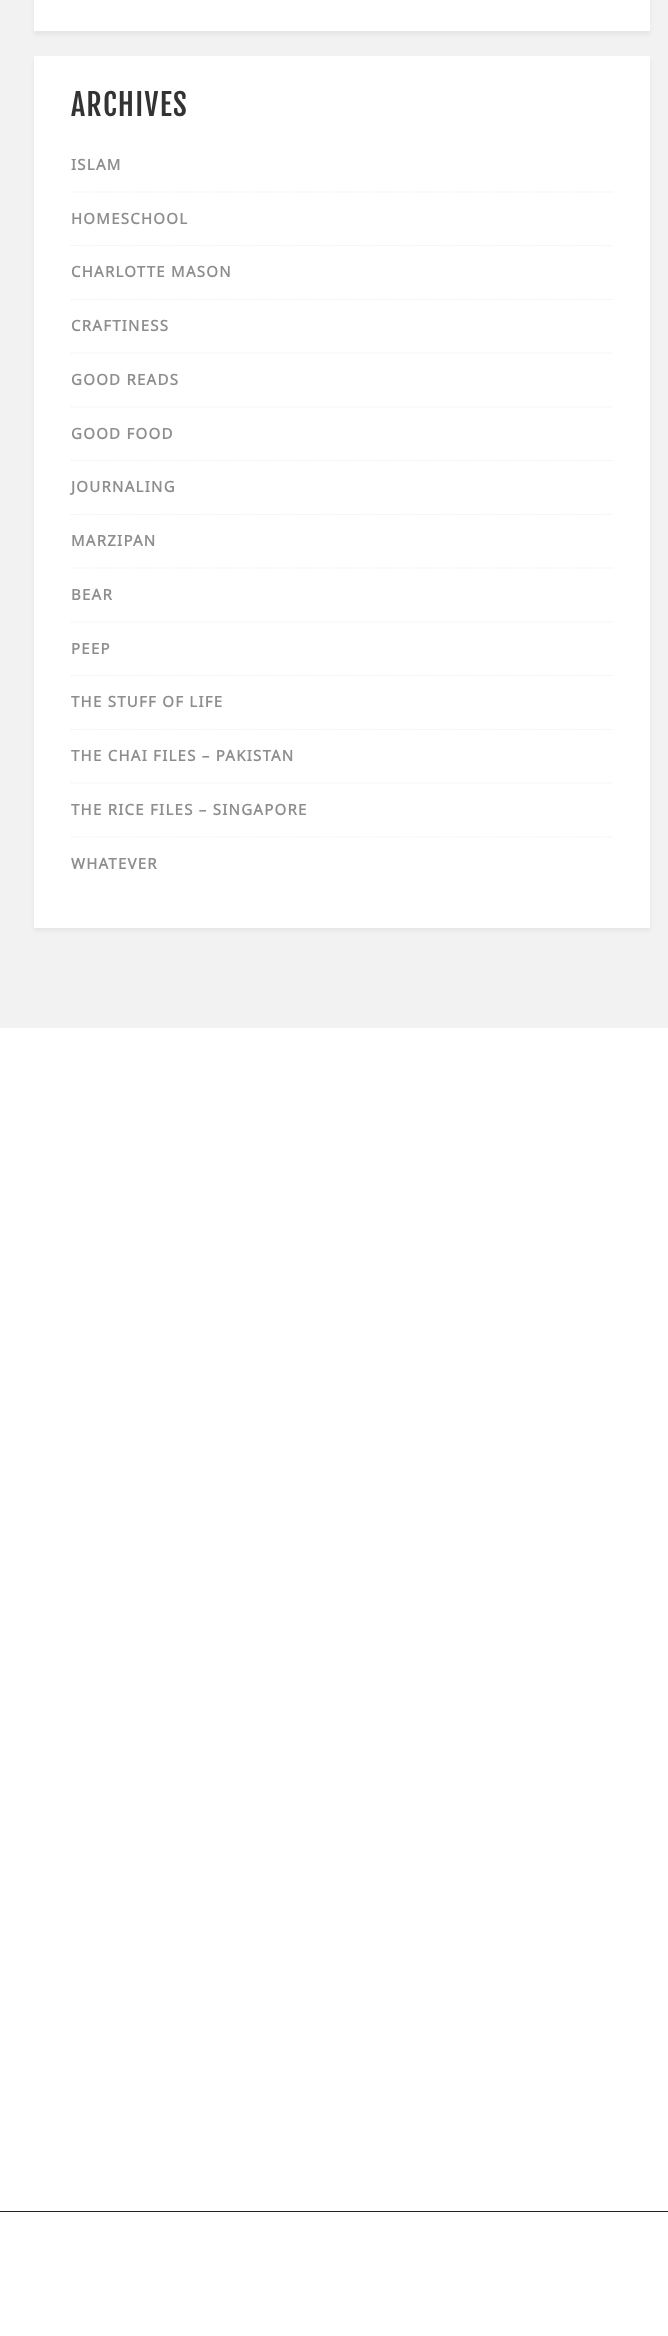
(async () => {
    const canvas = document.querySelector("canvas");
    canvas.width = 668;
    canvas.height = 2336;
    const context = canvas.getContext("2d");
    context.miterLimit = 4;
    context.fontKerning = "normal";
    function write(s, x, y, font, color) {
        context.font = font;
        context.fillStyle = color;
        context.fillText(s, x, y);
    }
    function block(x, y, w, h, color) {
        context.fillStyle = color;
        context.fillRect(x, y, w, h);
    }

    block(0, 0, 668, 2336, "rgb(242, 242, 242)");
    context.fillStyle = "rgba(0, 0, 0, 0.05)";
    context.filter = "blur(2px)";
    context.beginPath();
    context.rect(34, -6, 616, 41);
    context.fill();
    context.filter = "none";
    block(34, 0, 616, 31, "rgb(255, 255, 255)");
    context.fillStyle = "rgba(0, 0, 0, 0.05)";
    context.filter = "blur(2px)";
    context.beginPath();
    context.rect(34, 60, 616, 871);
    context.fill();
    context.filter = "none";
    block(34, 56, 616, 872, "rgb(255, 255, 255)");
    context.letterSpacing = "1.25px";
    write("ARCHIVES", 71, 116, "30px Fjalla One", "rgb(51, 51, 51)");
    context.beginPath();
    context.moveTo(71, 192);
    context.lineTo(612.5, 192);
    context.strokeStyle = "rgb(238, 238, 238)";
    context.lineWidth = 1.2;
    context.setLineDash([1.25, 1.25]);
    context.stroke();
    write("ISLAM", 71, 170, "bold 15px Noto Sans", "rgb(142, 142, 142)");
    context.beginPath();
    context.moveTo(71, 245.5);
    context.lineTo(612.5, 245.5);
    context.stroke();
    write("HOMESCHOOL", 71, 224, "bold 15px Noto Sans", "rgb(142, 142, 142)");
    context.beginPath();
    context.moveTo(71, 299.5);
    context.lineTo(612.5, 299.5);
    context.stroke();
    write("CHARLOTTE MASON", 71, 277, "bold 15px Noto Sans", "rgb(142, 142, 142)");
    context.beginPath();
    context.moveTo(71, 353);
    context.lineTo(612.5, 353);
    context.stroke();
    write("CRAFTINESS", 71, 331, "bold 15px Noto Sans", "rgb(142, 142, 142)");
    context.beginPath();
    context.moveTo(71, 407);
    context.lineTo(612.5, 407);
    context.stroke();
    write("GOOD READS", 71, 385, "bold 15px Noto Sans", "rgb(142, 142, 142)");
    context.beginPath();
    context.moveTo(71, 460.5);
    context.lineTo(612.5, 460.5);
    context.stroke();
    write("GOOD FOOD", 71, 439, "bold 15px Noto Sans", "rgb(142, 142, 142)");
    context.beginPath();
    context.moveTo(71, 514.5);
    context.lineTo(612.5, 514.5);
    context.stroke();
    write("JOURNALING", 71, 492, "bold 15px Noto Sans", "rgb(142, 142, 142)");
    context.beginPath();
    context.moveTo(71, 568);
    context.lineTo(612.5, 568);
    context.stroke();
    write("MARZIPAN", 71, 546, "bold 15px Noto Sans", "rgb(142, 142, 142)");
    context.beginPath();
    context.moveTo(71, 622);
    context.lineTo(612.5, 622);
    context.stroke();
    write("BEAR", 71, 600, "bold 15px Noto Sans", "rgb(142, 142, 142)");
    context.beginPath();
    context.moveTo(71, 675.5);
    context.lineTo(612.5, 675.5);
    context.stroke();
    write("PEEP", 71, 654, "bold 15px Noto Sans", "rgb(142, 142, 142)");
    context.beginPath();
    context.moveTo(71, 729.5);
    context.lineTo(612.5, 729.5);
    context.stroke();
    write("THE STUFF OF LIFE", 71, 707, "bold 15px Noto Sans", "rgb(142, 142, 142)");
    context.beginPath();
    context.moveTo(71, 783);
    context.lineTo(612.5, 783);
    context.stroke();
    write("THE CHAI FILES – PAKISTAN", 71, 761, "bold 15px Noto Sans", "rgb(142, 142, 142)");
    context.beginPath();
    context.moveTo(71, 837);
    context.lineTo(612.5, 837);
    context.stroke();
    write("THE RICE FILES – SINGAPORE", 71, 815, "bold 15px Noto Sans", "rgb(142, 142, 142)");
    write("WHATEVER", 71, 869, "bold 15px Noto Sans", "rgb(142, 142, 142)");
    block(0, 1028, 668, 1183, "rgb(255, 255, 255)");
    block(0, 2212, 668, 124, "rgb(255, 255, 255)");
    block(0, 2211, 668, 1, "rgb(34, 34, 34)");
})();
